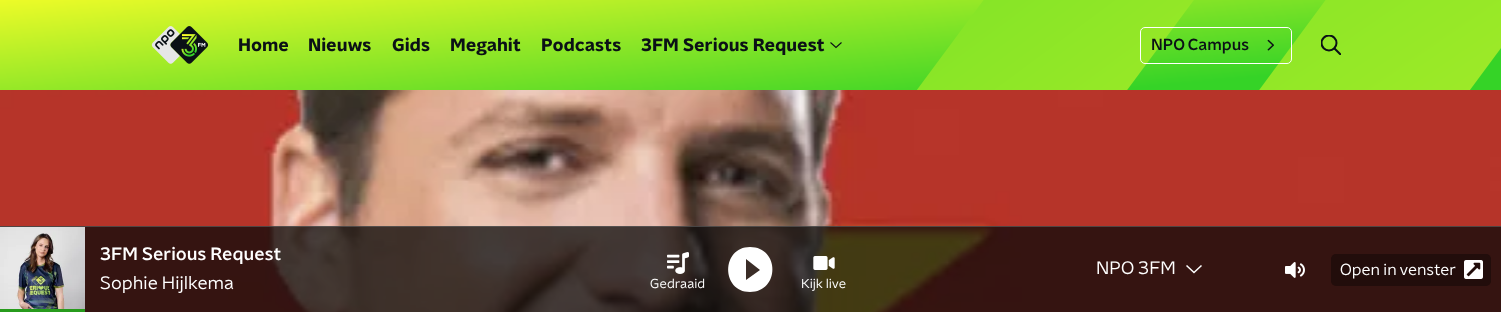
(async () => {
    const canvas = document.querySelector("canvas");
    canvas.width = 1501;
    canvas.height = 312;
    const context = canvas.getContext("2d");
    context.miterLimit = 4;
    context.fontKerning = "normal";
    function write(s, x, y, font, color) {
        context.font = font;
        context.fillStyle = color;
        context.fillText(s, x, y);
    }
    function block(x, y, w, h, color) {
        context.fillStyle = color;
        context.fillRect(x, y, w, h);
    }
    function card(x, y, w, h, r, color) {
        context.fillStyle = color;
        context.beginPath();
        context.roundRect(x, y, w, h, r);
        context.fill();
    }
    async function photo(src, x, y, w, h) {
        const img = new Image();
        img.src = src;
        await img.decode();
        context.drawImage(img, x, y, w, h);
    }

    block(0, 0, 1501, 312, "rgb(255, 255, 255)");
    await photo("media/1.png", 0, 0, 1501, 90);
    await photo("media/2.png", 151, 26, 57, 38);
    write("Home", 238, 51, "bold 18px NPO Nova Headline", "rgb(11, 17, 22)");
    write("Nieuws", 308, 51, "bold 18px NPO Nova Headline", "rgb(11, 17, 22)");
    write("Gids", 392, 51, "bold 18px NPO Nova Headline", "rgb(11, 17, 22)");
    write("Megahit", 450, 51, "bold 18px NPO Nova Headline", "rgb(11, 17, 22)");
    write("Podcasts", 541, 51, "bold 18px NPO Nova Headline", "rgb(11, 17, 22)");
    write("3FM Serious Request", 641, 51, "bold 18px NPO Nova Headline", "rgb(11, 17, 22)");
    context.beginPath();
    context.moveTo(830.5, 42.5);
    context.lineTo(836, 47.5);
    context.lineTo(841.5, 42.5);
    context.strokeStyle = "rgb(11, 17, 22)";
    context.lineWidth = 1.1;
    context.stroke();
    context.beginPath();
    context.roundRect(1140.5, 27.5, 151, 36, 4.5);
    context.strokeStyle = "rgb(255, 255, 255)";
    context.lineWidth = 1;
    context.stroke();
    write("NPO Campus", 1151, 50, "500 16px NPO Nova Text", "rgb(11, 17, 22)");
    await photo("media/3.png", 1267, 39, 7, 12);
    context.save();
    context.beginPath();
    context.rect(1321, 35, 20, 20);
    context.clip();
    context.beginPath();
    context.arc(1329, 43, 7.5, 0, Math.PI * 2);
    context.strokeStyle = "rgb(11, 17, 22)";
    context.lineWidth = 2;
    context.stroke();
    context.beginPath();
    context.moveTo(1334.5, 48.5);
    context.lineTo(1340.5, 54.5);
    context.lineCap = "square";
    context.stroke();
    context.restore();
    await photo("media/4.png", 0, 90, 1501, 222);
    block(0, 226, 1501, 86, "rgba(9, 9, 9, 0.75)");
    block(0, 226, 1501, 1, "rgba(95, 95, 95, 0.65)");
    await photo("media/5.png", 0, 227, 85, 82);
    block(0, 309, 85, 3, "rgb(39, 155, 28)");
    write("3FM Serious Request", 100, 260, "500 18px NPO Nova Text", "rgb(255, 255, 255)");
    write("Sophie Hijlkema", 100, 289, "18px NPO Nova Text", "rgb(255, 255, 255)");
    write("NPO 3FM", 1096, 274, "18px NPO Nova Text", "rgb(255, 255, 255)");
    context.beginPath();
    context.moveTo(1186.5, 265.5);
    context.lineTo(1194, 272.5);
    context.lineTo(1201.5, 265.5);
    context.lineWidth = 1.5;
    context.stroke();
    await photo("media/6.png", 1285, 262, 20, 16);
    card(1331, 254, 160, 32, 5, "rgb(34, 13, 11)");
    write("Open in venster", 1340, 275, "16px NPO Nova Text", "rgb(255, 255, 255)");
    await photo("media/7.png", 1464, 260, 19, 19);
    await photo("media/8.png", 667, 252, 22, 22);
    write("Gedraaid", 650, 288, "13px NPO Nova Text", "rgb(255, 255, 255)");
    context.beginPath();
    context.moveTo(750, 247);
    context.bezierCurveTo(721, 247, 721, 292, 750, 292);
    context.bezierCurveTo(780, 292, 780, 247, 750, 247);
    context.closePath();
    context.moveTo(746, 280);
    context.lineTo(746, 259);
    context.lineTo(760, 270);
    context.closePath();
    context.fill();
    await photo("media/9.png", 813, 256, 22, 14);
    write("Kijk live", 801, 288, "13px NPO Nova Text", "rgb(255, 255, 255)");
})();
